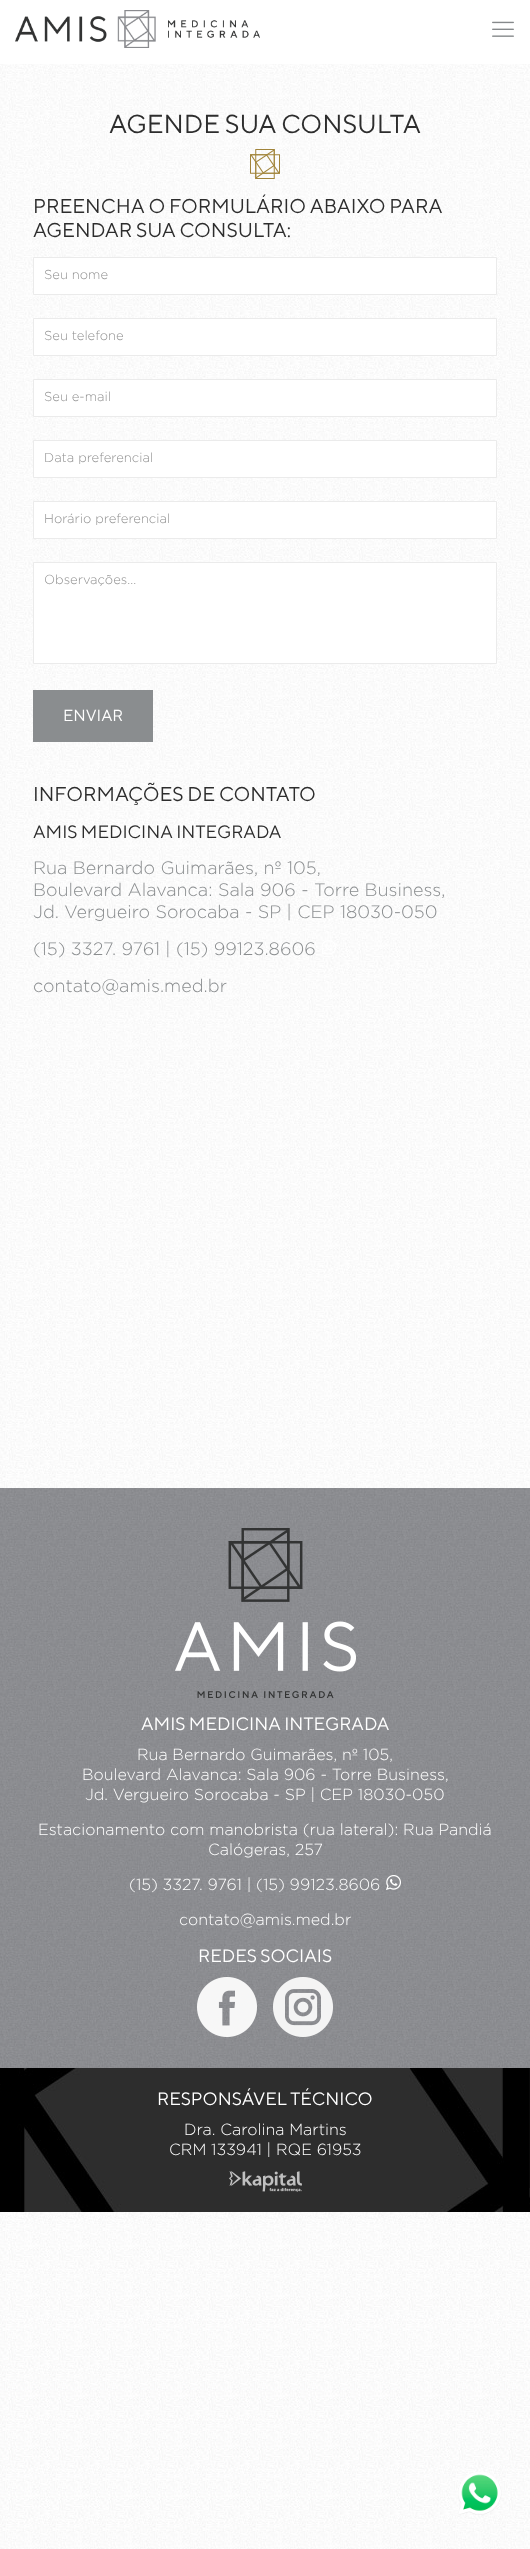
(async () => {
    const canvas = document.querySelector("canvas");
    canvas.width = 530;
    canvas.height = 2549;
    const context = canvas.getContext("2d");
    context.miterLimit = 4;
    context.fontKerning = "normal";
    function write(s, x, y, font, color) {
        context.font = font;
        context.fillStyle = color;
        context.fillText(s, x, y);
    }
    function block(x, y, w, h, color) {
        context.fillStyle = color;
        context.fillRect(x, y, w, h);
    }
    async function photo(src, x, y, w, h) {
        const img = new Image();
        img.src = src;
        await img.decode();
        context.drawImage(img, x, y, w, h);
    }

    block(0, 0, 530, 2549, "rgb(255, 255, 255)");
    await photo("media/1.png", 0, 64, 530, 2485);
    await photo("media/2.png", 15, 10, 245, 38);
    await photo("media/3.png", 492, 21, 22, 16);
    write("AGENDE SUA CONSULTA", 109, 133, "26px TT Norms", "rgb(45, 45, 45)");
    await photo("media/4.png", 250, 149, 30, 30);
    write("PREENCHA O FORMULÁRIO ABAIXO PARA", 33, 213, "20px TT Norms", "rgb(45, 45, 45)");
    write("AGENDAR SUA CONSULTA:", 33, 237, "20px TT Norms", "rgb(45, 45, 45)");
    context.fillStyle = "rgb(255, 255, 255)";
    context.beginPath();
    context.rect(33.5, 257.5, 463, 37);
    context.fill();
    context.strokeStyle = "rgb(235, 235, 235)";
    context.stroke();
    write("Seu nome", 44, 279, "300 13px Gotham", "rgb(146, 146, 146)");
    context.fillStyle = "rgb(255, 255, 255)";
    context.beginPath();
    context.rect(33.5, 318.5, 463, 37);
    context.fill();
    context.stroke();
    write("Seu telefone", 44, 340, "300 13px Gotham", "rgb(146, 146, 146)");
    context.fillStyle = "rgb(255, 255, 255)";
    context.beginPath();
    context.rect(33.5, 379.5, 463, 37);
    context.fill();
    context.stroke();
    write("Seu e-mail", 44, 401, "300 13px Gotham", "rgb(146, 146, 146)");
    context.fillStyle = "rgb(255, 255, 255)";
    context.beginPath();
    context.rect(33.5, 440.5, 463, 37);
    context.fill();
    context.stroke();
    write("Data preferencial", 44, 462, "300 13px Gotham", "rgb(146, 146, 146)");
    context.fillStyle = "rgb(255, 255, 255)";
    context.beginPath();
    context.rect(33.5, 501.5, 463, 37);
    context.fill();
    context.stroke();
    write("Horário preferencial", 44, 523, "300 13px Gotham", "rgb(146, 146, 146)");
    context.fillStyle = "rgb(255, 255, 255)";
    context.beginPath();
    context.rect(33.5, 562.5, 463, 101);
    context.fill();
    context.stroke();
    write("Observações...", 44, 584, "300 13px Gotham", "rgb(146, 146, 146)");
    block(33, 690, 120, 52, "rgb(138, 141, 143)");
    write("ENVIAR", 63, 721, "16px TT Norms", "rgb(255, 255, 255)");
    write("INFORMAÇÕES DE CONTATO", 33, 801, "20px TT Norms", "rgb(45, 45, 45)");
    write("AMIS MEDICINA INTEGRADA", 33, 838, "18px TT Norms", "rgb(45, 45, 45)");
    write("Rua Bernardo Guimarães, nº 105,", 33, 874, "300 18px Gotham", "rgb(138, 141, 143)");
    write("Boulevard Alavanca: Sala 906 - Torre Business,", 33, 896, "300 18px Gotham", "rgb(138, 141, 143)");
    write("Jd. Vergueiro Sorocaba - SP | CEP 18030-050", 33, 918, "300 18px Gotham", "rgb(138, 141, 143)");
    write("(15) 3327. 9761 | (15) 99123.8606", 33, 955, "300 18px Gotham", "rgb(138, 141, 143)");
    await photo("media/5.png", 322, 940, 14, 14);
    write("contato@amis.med.br", 33, 992, "300 18px Gotham", "rgb(138, 141, 143)");
    await photo("media/6.png", 0, 1488, 530, 580);
    await photo("media/7.png", 175, 1528, 181, 170);
    write("AMIS MEDICINA INTEGRADA", 141, 1730, "18px TT Norms", "rgb(255, 255, 255)");
    write("Rua Bernardo Guimarães, nº 105,", 137, 1760, "300 16px Gotham", "rgb(255, 255, 255)");
    write("Boulevard Alavanca: Sala 906 - Torre Business,", 82, 1780, "300 16px Gotham", "rgb(255, 255, 255)");
    write("Jd. Vergueiro Sorocaba - SP | CEP 18030-050", 85, 1800, "300 16px Gotham", "rgb(255, 255, 255)");
    write("Estacionamento com manobrista (rua lateral): Rua Pandiá", 38, 1835, "300 16px Gotham", "rgb(255, 255, 255)");
    write("Calógeras, 257", 208, 1855, "300 16px Gotham", "rgb(255, 255, 255)");
    write("(15) 3327. 9761 | (15) 99123.8606", 129, 1890, "300 16px Gotham", "rgb(255, 255, 255)");
    await photo("media/8.png", 386, 1875, 15, 15);
    write("contato@amis.med.br", 179, 1925, "300 16px Gotham", "rgb(255, 255, 255)");
    write("REDES SOCIAIS", 198, 1962, "18px TT Norms", "rgb(255, 255, 255)");
    await photo("media/9.png", 197, 1977, 60, 60);
    await photo("media/10.png", 273, 1977, 60, 60);
    await photo("media/11.png", 0, 2068, 530, 144);
    write("RESPONSÁVEL TÉCNICO", 157, 2105, "18px TT Norms", "rgb(255, 255, 255)");
    write("Dra. Carolina Martins", 184, 2135, "300 16px Gotham", "rgb(255, 255, 255)");
    write("CRM 133941 | RQE 61953", 169, 2155, "300 16px Gotham", "rgb(255, 255, 255)");
    await photo("media/12.png", 229, 2171, 73, 21);
    await photo("media/13.png", 458, 2472, 44, 43);
})();
